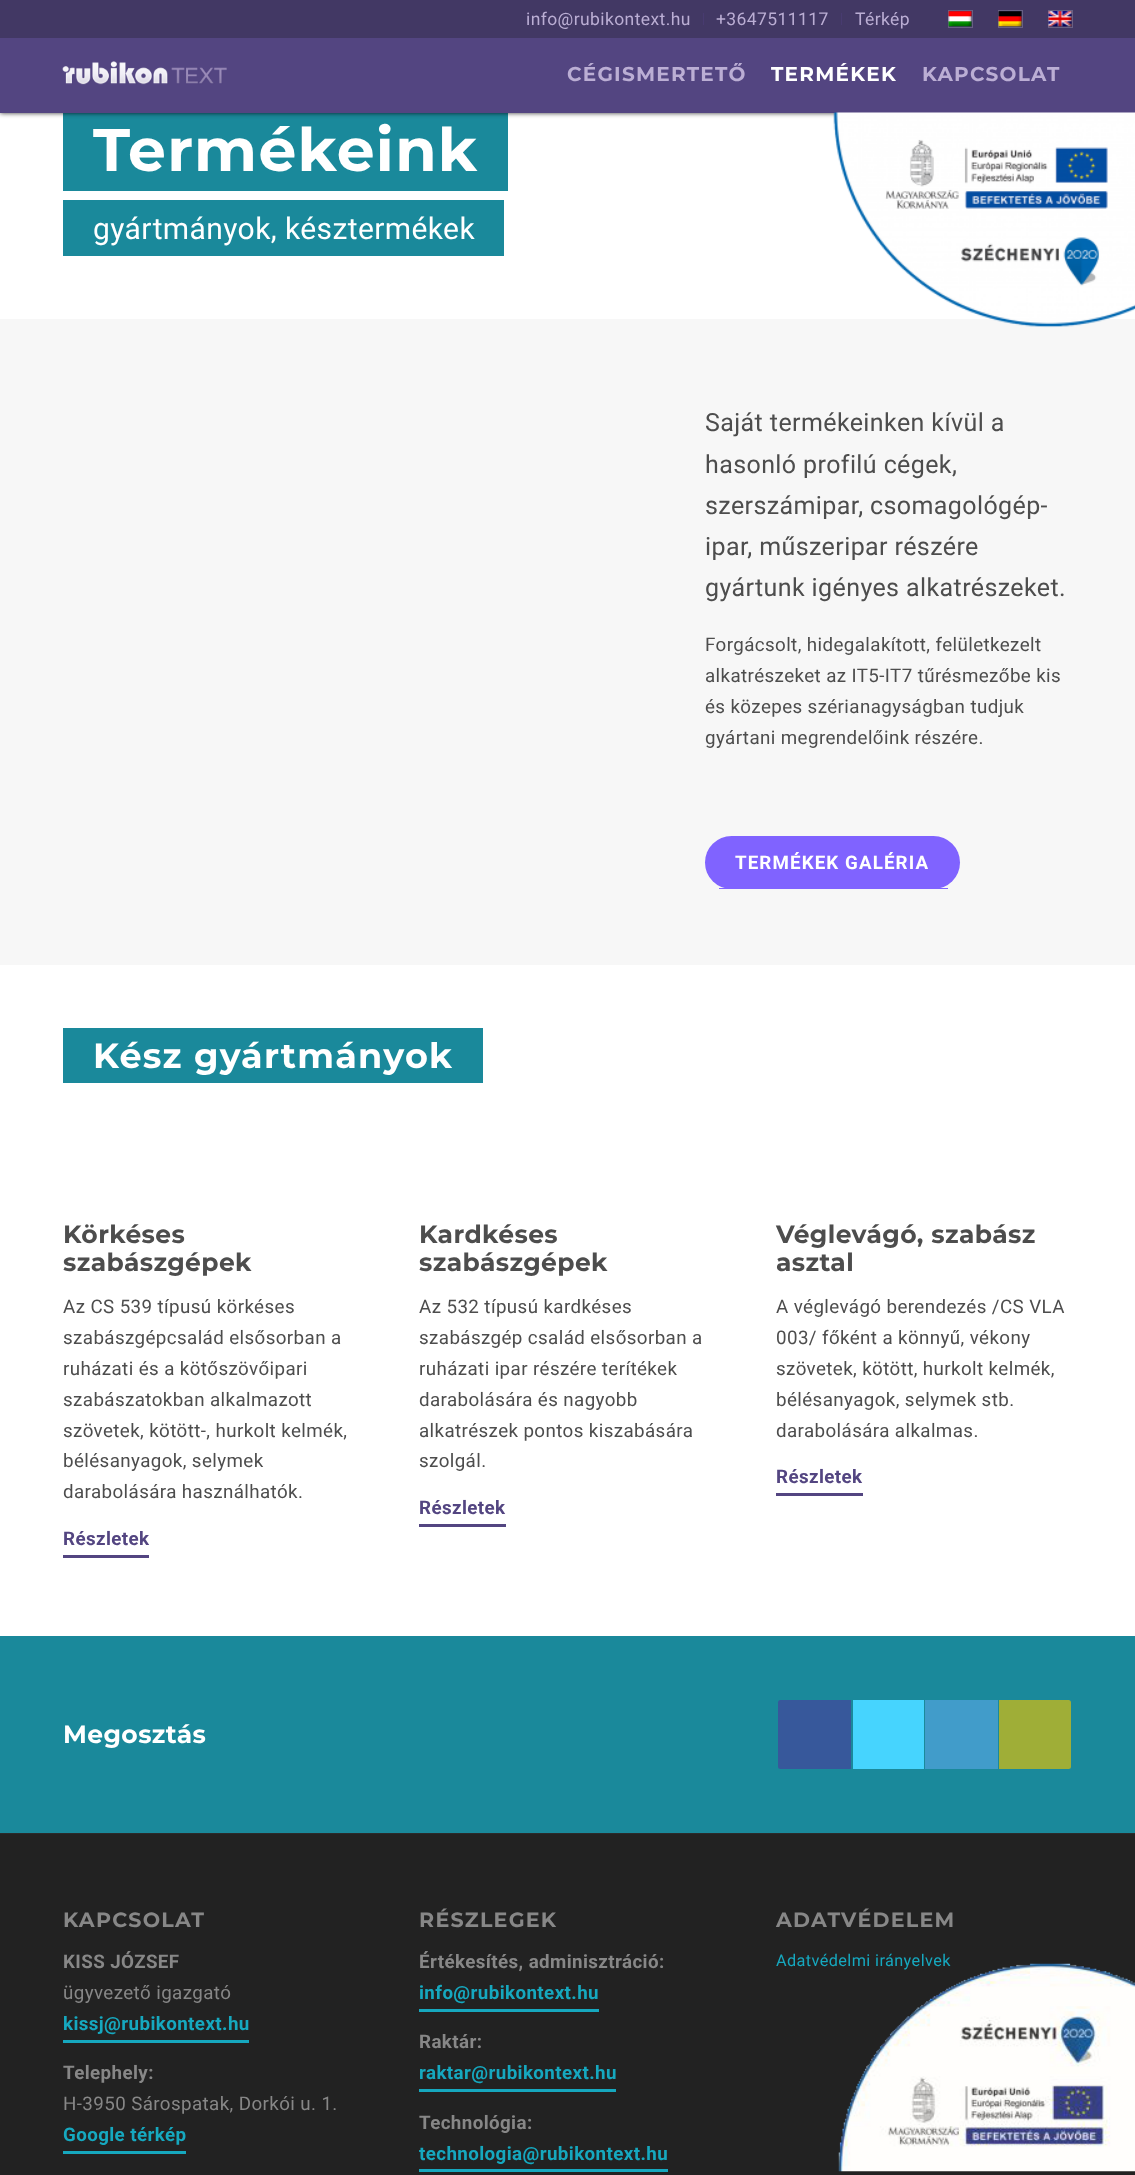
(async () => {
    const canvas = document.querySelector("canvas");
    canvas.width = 1135;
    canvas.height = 2175;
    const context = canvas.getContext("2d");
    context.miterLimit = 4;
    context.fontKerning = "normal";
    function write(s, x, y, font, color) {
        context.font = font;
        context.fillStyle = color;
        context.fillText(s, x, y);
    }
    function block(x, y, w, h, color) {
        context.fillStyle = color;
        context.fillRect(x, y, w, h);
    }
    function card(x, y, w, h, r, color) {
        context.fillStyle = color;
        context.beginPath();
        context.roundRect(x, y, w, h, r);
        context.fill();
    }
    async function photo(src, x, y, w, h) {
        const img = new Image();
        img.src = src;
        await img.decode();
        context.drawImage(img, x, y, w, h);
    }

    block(0, 0, 1135, 2175, "rgb(255, 255, 255)");
    block(63, 113, 445, 78, "rgb(26, 137, 155)");
    context.fillStyle = "rgba(0, 0, 0, 0.8)";
    context.filter = "blur(2.5px)";
    context.beginPath();
    context.rect(0, 0, 1135, 113);
    context.fill();
    context.filter = "none";
    block(0, 0, 1135, 38, "rgb(66, 56, 100)");
    block(703, 13, 1, 12, "rgb(72, 59, 112)");
    context.letterSpacing = "0.4px";
    write("info@rubikontext.hu", 526, 25, "17.5px Roboto", "rgb(187, 174, 212)");
    block(841, 13, 1, 12, "rgb(72, 59, 112)");
    write("+3647511117", 716, 25, "17.5px Roboto", "rgb(187, 174, 212)");
    write("Térkép", 855, 25, "17.5px Roboto", "rgb(187, 174, 212)");
    context.strokeStyle = "rgb(104, 96, 131)";
    context.strokeRect(948.5, 10.5, 24, 17);
    await photo("media/1.png", 948, 11, 24, 16);
    context.strokeRect(998.5, 10.5, 24, 17);
    await photo("media/2.png", 998, 11, 24, 16);
    context.strokeRect(1048.5, 10.5, 24, 17);
    await photo("media/3.png", 1048, 11, 24, 16);
    block(0, 38, 1135, 75, "rgb(83, 69, 129)");
    await photo("media/4.png", 62, 61, 165, 24);
    context.letterSpacing = "1.25px";
    write("CÉGISMERTETŐ", 567, 81, "bold 20px Montserrat", "rgb(187, 174, 212)");
    write("TERMÉKEK", 771, 81, "bold 20px Montserrat", "rgb(255, 255, 255)");
    write("KAPCSOLAT", 922, 81, "bold 20px Montserrat", "rgb(187, 174, 212)");
    write("Termékeink", 93, 171, "bold 60px Montserrat", "rgb(255, 255, 255)");
    block(63, 200, 441, 56, "rgb(26, 137, 155)");
    context.letterSpacing = "0.4px";
    write("gyártmányok, késztermékek", 93, 239, "30px Roboto", "rgb(255, 255, 255)");
    block(0, 319, 1135, 646, "rgb(247, 247, 247)");
    write("Saját termékeinken kívül a", 705, 431, "25px Roboto", "rgb(77, 77, 77)");
    write("hasonló profilú cégek,", 705, 473, "25px Roboto", "rgb(77, 77, 77)");
    write("szerszámipar, csomagológép-", 705, 514, "25px Roboto", "rgb(77, 77, 77)");
    write("ipar, műszeripar részére", 705, 555, "25px Roboto", "rgb(77, 77, 77)");
    write("gyártunk igényes alkatrészeket.", 705, 596, "25px Roboto", "rgb(77, 77, 77)");
    write("Forgácsolt, hidegalakított, felületkezelt", 705, 651, "18.75px Roboto", "rgb(77, 77, 77)");
    write("alkatrészeket az IT5-IT7 tűrésmezőbe kis", 705, 682, "18.75px Roboto", "rgb(77, 77, 77)");
    write("és közepes szérianagyságban tudjuk", 705, 713, "18.75px Roboto", "rgb(77, 77, 77)");
    write("gyártani megrendelőink részére.", 705, 744, "18.75px Roboto", "rgb(77, 77, 77)");
    card(705, 836, 255, 53, 26.5, "rgb(128, 99, 255)");
    block(719, 888, 229, 1, "rgb(128, 99, 255)");
    context.letterSpacing = "1.1px";
    write("TERMÉKEK GALÉRIA", 735, 869, "bold 18.75px Roboto", "rgb(255, 255, 255)");
    block(63, 1028, 420, 55, "rgb(26, 137, 155)");
    context.letterSpacing = "1.25px";
    write("Kész gyártmányok", 93, 1068, "bold 35px Montserrat", "rgb(255, 255, 255)");
    context.letterSpacing = "0.4px";
    write("Körkéses", 63, 1243, "bold 25px Montserrat", "rgb(77, 77, 77)");
    write("szabászgépek", 63, 1271, "bold 25px Montserrat", "rgb(77, 77, 77)");
    write("Az CS 539 típusú körkéses", 63, 1313, "18.75px Roboto", "rgb(77, 77, 77)");
    write("szabászgépcsalád elsősorban a", 63, 1344, "18.75px Roboto", "rgb(77, 77, 77)");
    write("ruházati és a kötőszövőipari", 63, 1375, "18.75px Roboto", "rgb(77, 77, 77)");
    write("szabászatokban alkalmazott", 63, 1406, "18.75px Roboto", "rgb(77, 77, 77)");
    write("szövetek, kötött-, hurkolt kelmék,", 63, 1437, "18.75px Roboto", "rgb(77, 77, 77)");
    write("bélésanyagok, selymek", 63, 1467, "18.75px Roboto", "rgb(77, 77, 77)");
    write("darabolására használhatók.", 63, 1498, "18.75px Roboto", "rgb(77, 77, 77)");
    block(63, 1555, 86, 3, "rgb(83, 69, 129)");
    write("Részletek", 63, 1545, "bold 18.75px Roboto", "rgb(83, 69, 129)");
    write("Kardkéses", 419, 1243, "bold 25px Montserrat", "rgb(77, 77, 77)");
    write("szabászgépek", 419, 1271, "bold 25px Montserrat", "rgb(77, 77, 77)");
    write("Az 532 típusú kardkéses", 419, 1313, "18.75px Roboto", "rgb(77, 77, 77)");
    write("szabászgép család elsősorban a", 419, 1344, "18.75px Roboto", "rgb(77, 77, 77)");
    write("ruházati ipar részére terítékek", 419, 1375, "18.75px Roboto", "rgb(77, 77, 77)");
    write("darabolására és nagyobb", 419, 1406, "18.75px Roboto", "rgb(77, 77, 77)");
    write("alkatrészek pontos kiszabására", 419, 1437, "18.75px Roboto", "rgb(77, 77, 77)");
    write("szolgál.", 419, 1467, "18.75px Roboto", "rgb(77, 77, 77)");
    block(419, 1524, 87, 3, "rgb(83, 69, 129)");
    write("Részletek", 419, 1514, "bold 18.75px Roboto", "rgb(83, 69, 129)");
    write("Véglevágó, szabász", 776, 1243, "bold 25px Montserrat", "rgb(77, 77, 77)");
    write("asztal", 776, 1271, "bold 25px Montserrat", "rgb(77, 77, 77)");
    write("A véglevágó berendezés /CS VLA", 776, 1313, "18.75px Roboto", "rgb(77, 77, 77)");
    write("003/ főként a könnyű, vékony", 776, 1344, "18.75px Roboto", "rgb(77, 77, 77)");
    write("szövetek, kötött, hurkolt kelmék,", 776, 1375, "18.75px Roboto", "rgb(77, 77, 77)");
    write("bélésanyagok, selymek stb.", 776, 1406, "18.75px Roboto", "rgb(77, 77, 77)");
    write("darabolására alkalmas.", 776, 1437, "18.75px Roboto", "rgb(77, 77, 77)");
    block(776, 1493, 87, 3, "rgb(83, 69, 129)");
    write("Részletek", 776, 1483, "bold 18.75px Roboto", "rgb(83, 69, 129)");
    block(0, 1636, 1135, 197, "rgb(26, 137, 155)");
    write("Megosztás", 63, 1743, "bold 25px Montserrat", "rgb(255, 255, 255)");
    context.fillStyle = "rgb(55, 88, 155)";
    context.beginPath();
    context.roundRect(778, 1700, 73, 69, [2.5, 0, 0, 2.5]);
    context.fill();
    block(853, 1700, 71, 69, "rgb(70, 212, 254)");
    block(925, 1700, 73, 69, "rgb(65, 156, 202)");
    context.fillStyle = "rgb(159, 174, 55)";
    context.beginPath();
    context.roundRect(999, 1700, 72, 69, [0, 2.5, 2.5, 0]);
    context.fill();
    block(0, 1834, 1135, 341, "rgb(34, 34, 34)");
    block(0, 1833, 1135, 1, "rgb(43, 43, 43)");
    context.letterSpacing = "1.25px";
    write("KAPCSOLAT", 63, 1927, "bold 20.6px Montserrat", "rgb(135, 135, 135)");
    context.letterSpacing = "0.4px";
    write("KISS JÓZSEF", 63, 1968, "bold 18.75px Roboto", "rgb(135, 135, 135)");
    write("ügyvezető igazgató", 63, 1999, "18.75px Roboto", "rgb(135, 135, 135)");
    block(63, 2040, 186, 3, "rgb(22, 168, 191)");
    write("kissj@rubikontext.hu", 63, 2030, "bold 18.75px Roboto", "rgb(22, 168, 191)");
    write("Telephely:", 63, 2079, "bold 18.75px Roboto", "rgb(135, 135, 135)");
    write("H-3950 Sárospatak, Dorkói u. 1.", 63, 2110, "18.75px Roboto", "rgb(135, 135, 135)");
    block(63, 2151, 123, 3, "rgb(22, 168, 191)");
    write("Google térkép", 63, 2141, "bold 18.75px Roboto", "rgb(22, 168, 191)");
    context.letterSpacing = "1.25px";
    write("RÉSZLEGEK", 419, 1927, "bold 20.6px Montserrat", "rgb(135, 135, 135)");
    context.letterSpacing = "0.4px";
    write("Értékesítés, adminisztráció:", 419, 1968, "bold 18.75px Roboto", "rgb(135, 135, 135)");
    block(419, 2009, 180, 3, "rgb(22, 168, 191)");
    write("info@rubikontext.hu", 419, 1999, "bold 18.75px Roboto", "rgb(22, 168, 191)");
    write("Raktár:", 419, 2048, "bold 18.75px Roboto", "rgb(135, 135, 135)");
    block(419, 2089, 197, 3, "rgb(22, 168, 191)");
    write("raktar@rubikontext.hu", 419, 2079, "bold 18.75px Roboto", "rgb(22, 168, 191)");
    write("Technológia:", 419, 2129, "bold 18.75px Roboto", "rgb(135, 135, 135)");
    block(419, 2169, 249, 3, "rgb(22, 168, 191)");
    write("technologia@rubikontext.hu", 419, 2160, "bold 18.75px Roboto", "rgb(22, 168, 191)");
    context.letterSpacing = "1.25px";
    write("ADATVÉDELEM", 776, 1927, "bold 20.6px Montserrat", "rgb(135, 135, 135)");
    context.letterSpacing = "0.4px";
    write("Adatvédelmi irányelvek", 776, 1966, "16.25px Roboto", "rgb(22, 168, 191)");
    await photo("media/5.png", 833, 112, 302, 216);
    await photo("media/6.png", 838, 1963, 297, 209);
})();
